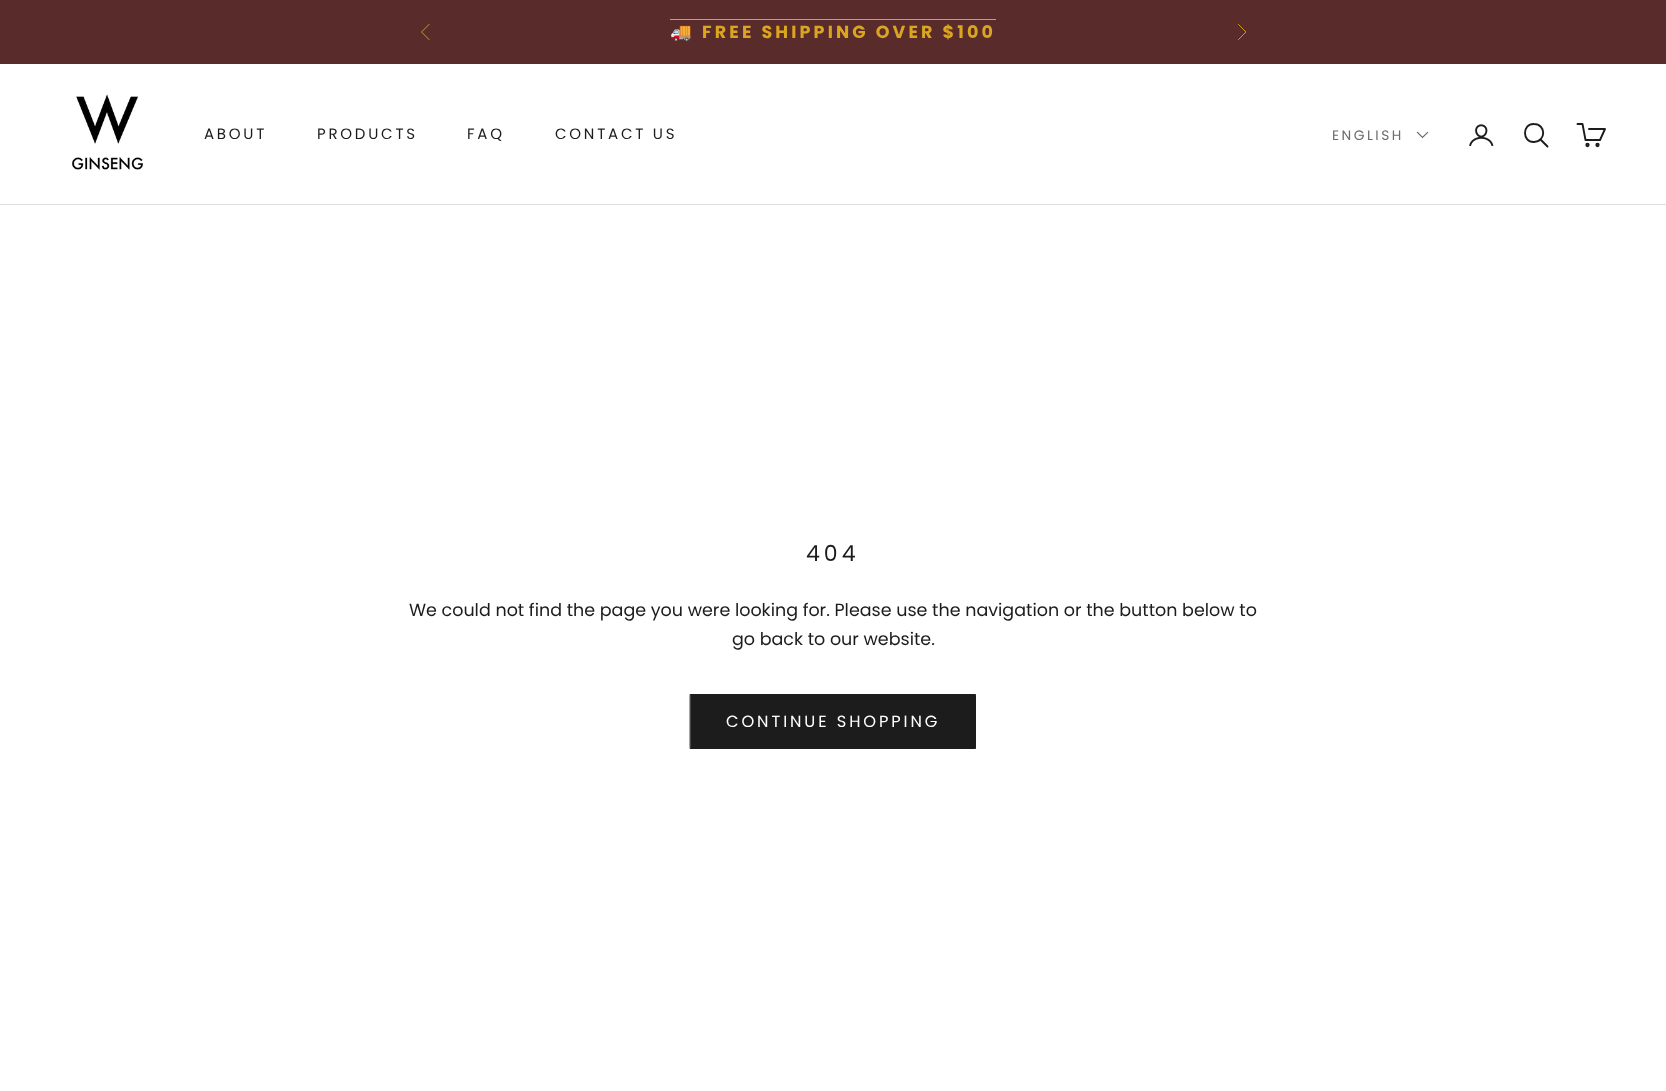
(async () => {
    const canvas = document.querySelector("canvas");
    canvas.width = 1666;
    canvas.height = 1091;
    const context = canvas.getContext("2d");
    context.miterLimit = 4;
    context.fontKerning = "normal";
    function write(s, x, y, font, color) {
        context.font = font;
        context.fillStyle = color;
        context.fillText(s, x, y);
    }
    function block(x, y, w, h, color) {
        context.fillStyle = color;
        context.fillRect(x, y, w, h);
    }
    async function photo(src, x, y, w, h) {
        const img = new Image();
        img.src = src;
        await img.decode();
        context.drawImage(img, x, y, w, h);
    }

    block(0, 0, 1666, 1091, "rgb(255, 255, 255)");
    block(0, 0, 1666, 64, "rgb(90, 43, 43)");
    context.beginPath();
    context.moveTo(429, 24.5);
    context.lineTo(421.5, 32);
    context.lineTo(429, 39.5);
    context.strokeStyle = "rgb(218, 165, 32)";
    context.lineWidth = 0.9;
    context.lineCap = "square";
    context.stroke();
    context.letterSpacing = "3.15px";
    write("🚚", 670, 38, "bold 17.5px Noto Color Emoji", "rgb(218, 165, 32)");
    block(670, 19, 326, 1, "rgb(218, 165, 32)");
    write("FREE SHIPPING OVER $100", 702, 38, "bold 17.5px Poppins", "rgb(218, 165, 32)");
    context.beginPath();
    context.moveTo(1238.5, 39.5);
    context.lineTo(1246, 32);
    context.lineTo(1238.5, 24.5);
    context.stroke();
    block(0, 204, 1666, 1, "rgb(221, 221, 221)");
    await photo("media/1.png", 72, 94, 71, 76);
    context.letterSpacing = "2.75px";
    write("ABOUT", 204, 139, "15px Poppins", "rgb(28, 28, 28)");
    write("PRODUCTS", 317, 139, "15px Poppins", "rgb(28, 28, 28)");
    write("FAQ", 467, 139, "15px Poppins", "rgb(28, 28, 28)");
    write("CONTACT US", 555, 139, "15px Poppins", "rgb(28, 28, 28)");
    context.letterSpacing = "2.5px";
    write("ENGLISH", 1332, 140, "13.75px Poppins", "rgb(107, 107, 107)");
    context.beginPath();
    context.moveTo(1417.5, 132.5);
    context.lineTo(1422.5, 137.5);
    context.lineTo(1427.5, 132.5);
    context.strokeStyle = "rgb(107, 107, 107)";
    context.lineWidth = 1.2;
    context.stroke();
    await photo("media/2.png", 1469, 124, 25, 23);
    context.beginPath();
    context.moveTo(1534, 124);
    context.bezierCurveTo(1522, 123.5, 1522, 142.5, 1534, 142);
    context.bezierCurveTo(1546.5, 141.5, 1546, 124, 1534, 124);
    context.closePath();
    context.strokeStyle = "rgb(28, 28, 28)";
    context.lineWidth = 1.9;
    context.lineCap = "butt";
    context.stroke();
    context.beginPath();
    context.moveTo(1541, 140);
    context.lineTo(1547.5, 146.5);
    context.lineCap = "round";
    context.stroke();
    context.beginPath();
    context.moveTo(1589, 129);
    context.lineTo(1605, 129);
    context.lineTo(1600, 140);
    context.lineTo(1585.5, 140);
    context.lineTo(1582.5, 124);
    context.lineTo(1577.5, 124);
    context.lineJoin = "round";
    context.stroke();
    context.beginPath();
    context.arc(1587.5, 145, 1.2, 0, Math.PI * 2);
    context.stroke();
    context.beginPath();
    context.arc(1597.5, 145, 1.2, 0, Math.PI * 2);
    context.stroke();
    context.letterSpacing = "4px";
    write("404", 806, 561, "22px Poppins", "rgb(28, 28, 28)");
    context.letterSpacing = "0px";
    write("We could not find the page you were looking for. Please use the navigation or the button below to", 409, 616, "17.5px Poppins", "rgb(28, 28, 28)");
    write("go back to our website.", 732, 645, "17.5px Poppins", "rgb(28, 28, 28)");
    context.beginPath();
    context.rect(690.5, 694.5, 285, 54);
    context.fill();
    context.lineWidth = 1;
    context.lineJoin = "miter";
    context.stroke();
    context.letterSpacing = "2.9px";
    write("CONTINUE SHOPPING", 726, 727, "16.25px Poppins", "rgb(255, 255, 255)");
})();
